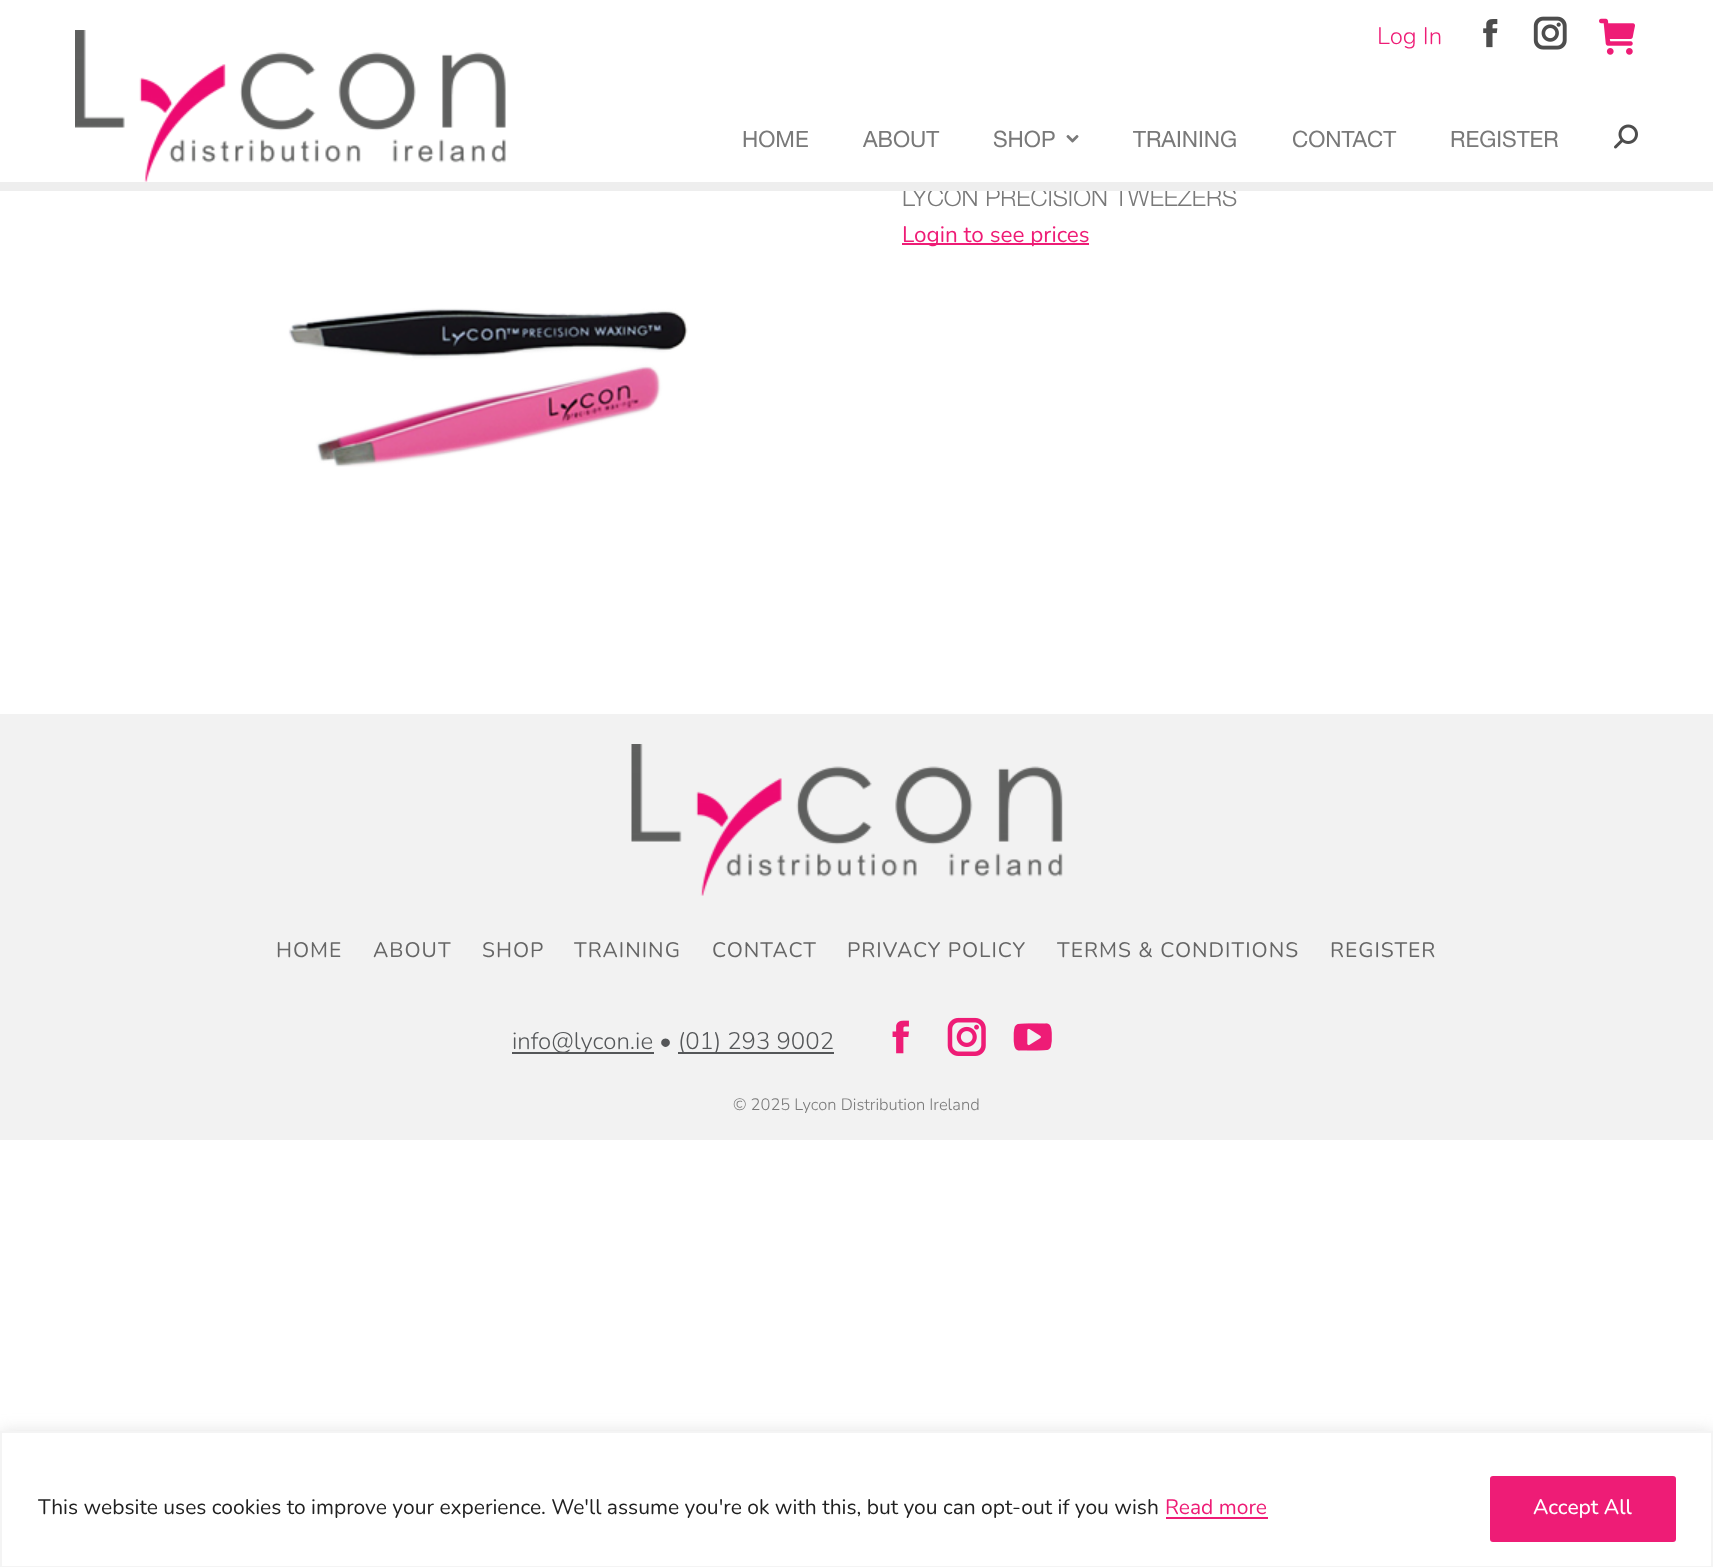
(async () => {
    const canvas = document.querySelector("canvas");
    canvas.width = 1713;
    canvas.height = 1567;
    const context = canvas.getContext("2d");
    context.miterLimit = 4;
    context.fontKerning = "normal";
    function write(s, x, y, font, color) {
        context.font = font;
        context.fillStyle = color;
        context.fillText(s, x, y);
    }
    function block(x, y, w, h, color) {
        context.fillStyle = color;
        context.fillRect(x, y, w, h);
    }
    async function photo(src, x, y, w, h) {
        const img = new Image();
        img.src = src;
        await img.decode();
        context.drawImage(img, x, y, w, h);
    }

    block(0, 0, 1713, 1567, "rgb(255, 255, 255)");
    write("LYCON PRECISION TWEEZERS", 902, 206, "300 24px Helvetica Neue", "rgb(121, 121, 121)");
    block(0, 182, 1713, 9, "rgb(238, 238, 238)");
    write("Log In", 1377, 44, "300 24px Nunito", "rgb(238, 28, 118)");
    await photo("media/1.png", 1483, 19, 15, 29);
    await photo("media/2.png", 1533, 16, 34, 34);
    await photo("media/3.png", 1599, 18, 36, 37);
    await photo("media/4.png", 75, 30, 431, 152);
    write("HOME", 742, 147, "22.5px Helvetica Neue", "rgb(121, 121, 121)");
    write("ABOUT", 863, 147, "22.5px Helvetica Neue", "rgb(121, 121, 121)");
    write("SHOP", 993, 147, "22.5px Helvetica Neue", "rgb(121, 121, 121)");
    await photo("media/5.png", 1066, 135, 13, 8);
    write("TRAINING", 1133, 147, "22.5px Helvetica Neue", "rgb(121, 121, 121)");
    write("CONTACT", 1292, 147, "22.5px Helvetica Neue", "rgb(121, 121, 121)");
    write("REGISTER", 1450, 147, "22.5px Helvetica Neue", "rgb(121, 121, 121)");
    await photo("media/6.png", 1614, 124, 24, 25);
    block(902, 243, 187, 2, "rgb(238, 28, 118)");
    write("Login to see prices", 902, 242, "22.5px Nunito", "rgb(238, 28, 118)");
    await photo("media/7.png", 288, 308, 400, 159);
    block(0, 714, 1713, 426, "rgb(242, 242, 242)");
    await photo("media/8.png", 631, 744, 432, 152);
    context.letterSpacing = "1px";
    write("HOME", 276, 957, "21px Nunito", "rgb(102, 102, 102)");
    write("ABOUT", 373, 957, "21px Nunito", "rgb(102, 102, 102)");
    write("SHOP", 482, 957, "21px Nunito", "rgb(102, 102, 102)");
    write("TRAINING", 574, 957, "21px Nunito", "rgb(102, 102, 102)");
    write("CONTACT", 712, 957, "21px Nunito", "rgb(102, 102, 102)");
    write("PRIVACY POLICY", 847, 957, "21px Nunito", "rgb(102, 102, 102)");
    write("TERMS & CONDITIONS", 1057, 957, "21px Nunito", "rgb(102, 102, 102)");
    write("REGISTER", 1330, 957, "21px Nunito", "rgb(102, 102, 102)");
    block(512, 1052, 142, 2, "rgb(85, 87, 89)");
    context.letterSpacing = "0px";
    write("info@lycon.ie •", 512, 1049, "300 24px Nunito", "rgb(85, 87, 89)");
    block(678, 1052, 156, 2, "rgb(85, 87, 89)");
    write("(01) 293 9002", 678, 1049, "300 24px Nunito", "rgb(85, 87, 89)");
    await photo("media/9.png", 892, 1020, 17, 34);
    await photo("media/10.png", 947, 1017, 39, 39);
    await photo("media/11.png", 1013, 1023, 39, 28);
    write("© 2025 Lycon Distribution Ireland", 733, 1110, "300 16.5px Nunito", "rgb(121, 121, 121)");
    context.fillStyle = "rgba(172, 171, 171, 0.3)";
    context.filter = "blur(7.5px)";
    context.beginPath();
    context.rect(0, 1430, 1713, 136);
    context.fill();
    context.filter = "none";
    context.fillStyle = "rgb(255, 255, 255)";
    context.beginPath();
    context.rect(1, 1432, 1711, 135);
    context.fill();
    context.strokeStyle = "rgb(244, 244, 244)";
    context.lineWidth = 2;
    context.stroke();
    write("This website uses cookies to improve your experience. We'll assume you're ok with this, but you can opt-out if you wish", 38, 1514, "21px Nunito", "rgb(33, 33, 33)");
    write("Read more", 1165, 1514, "21px Nunito", "rgb(238, 28, 118)");
    block(1166, 1517, 102, 2, "rgb(238, 28, 118)");
    context.beginPath();
    context.roundRect(1491.5, 1477.5, 183, 63, 1.5);
    context.fill();
    context.strokeStyle = "rgb(238, 28, 118)";
    context.lineWidth = 3;
    context.stroke();
    write("Accept All", 1533, 1514, "500 21px Nunito", "rgb(255, 255, 255)");
})();
